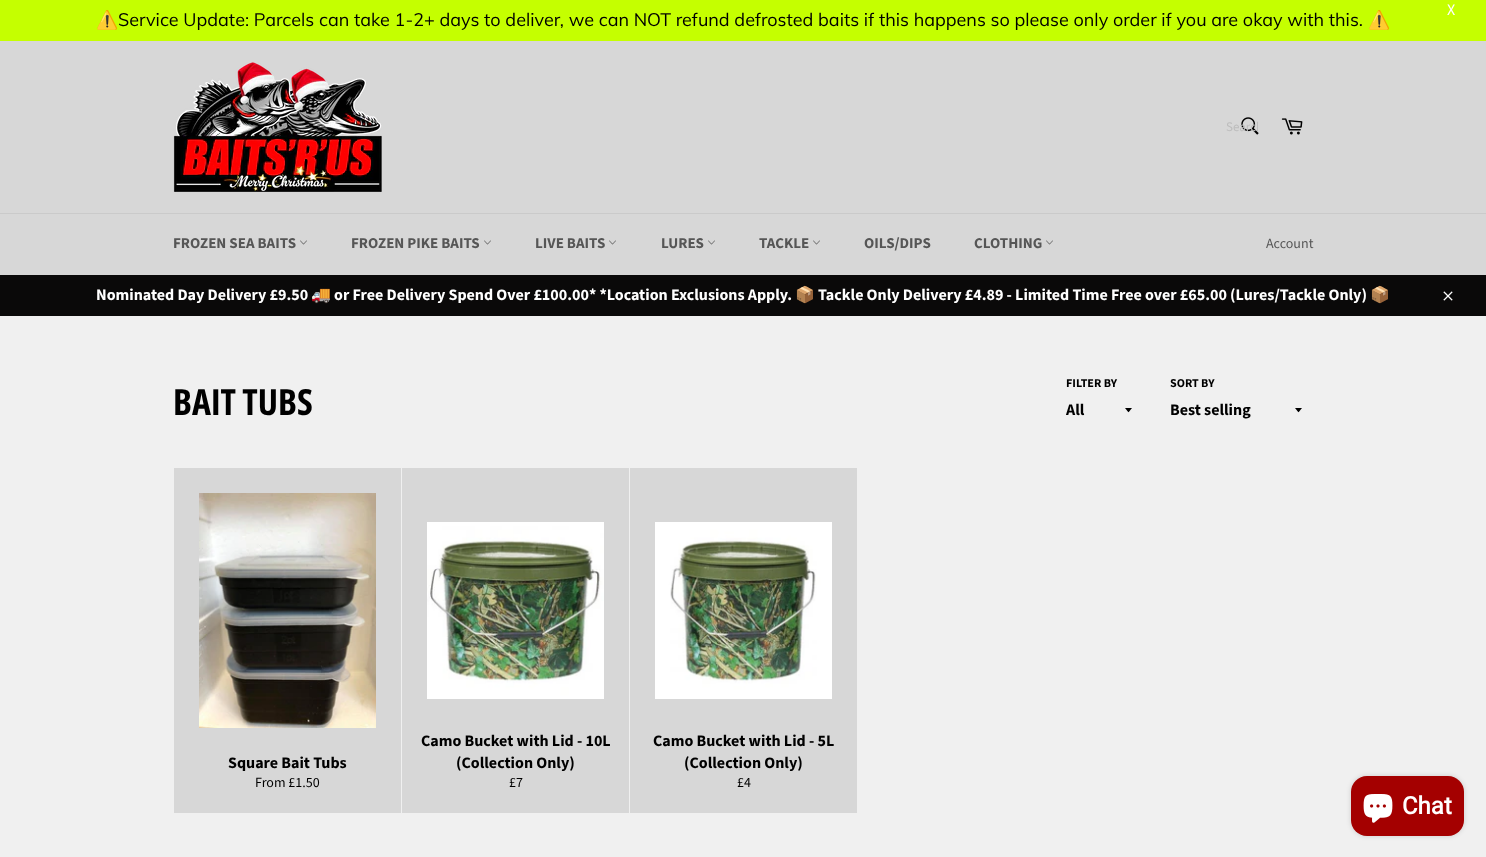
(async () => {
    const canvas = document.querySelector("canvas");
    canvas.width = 1486;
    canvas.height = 857;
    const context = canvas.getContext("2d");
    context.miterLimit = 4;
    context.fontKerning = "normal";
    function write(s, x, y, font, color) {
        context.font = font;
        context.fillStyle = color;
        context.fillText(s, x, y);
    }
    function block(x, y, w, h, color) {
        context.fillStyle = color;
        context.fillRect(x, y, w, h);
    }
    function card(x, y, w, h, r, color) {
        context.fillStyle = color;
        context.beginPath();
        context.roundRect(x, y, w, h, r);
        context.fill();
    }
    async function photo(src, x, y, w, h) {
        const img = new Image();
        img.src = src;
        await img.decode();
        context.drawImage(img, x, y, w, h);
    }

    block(0, 0, 1486, 857, "rgb(240, 240, 240)");
    block(0, 0, 1486, 41, "rgb(197, 255, 0)");
    write("⚠️", 96, 26, "18px Noto Color Emoji", "rgb(0, 0, 0)");
    write("Service Update: Parcels can take 1-2+ days to deliver, we can NOT refund defrosted baits if this happens so please only order if you are okay with this.", 118, 26, "18px Muli", "rgb(0, 0, 0)");
    write("⚠️", 1368, 26, "18px Noto Color Emoji", "rgb(0, 0, 0)");
    write("X", 1447, 15, "16px Source Sans Pro", "rgb(255, 255, 255)");
    block(0, 41, 1486, 172, "rgb(215, 215, 215)");
    await photo("media/1.png", 173, 62, 209, 130);
    await photo("media/2.png", 1241, 117, 18, 18);
    context.save();
    context.beginPath();
    context.rect(1226, 118, 32, 18);
    context.clip();
    write("Search", 1226, 131, "13px Source Sans Pro", "rgb(189, 189, 189)");
    context.restore();
    await photo("media/3.png", 1281, 118, 22, 17);
    block(0, 214, 1486, 61, "rgb(215, 215, 215)");
    block(0, 213, 1486, 1, "rgb(202, 202, 202)");
    write("FROZEN SEA BAITS", 173, 248, "bold 15px Source Sans Pro", "rgb(86, 86, 86)");
    await photo("media/4.png", 300, 240, 7, 5);
    write("FROZEN PIKE BAITS", 351, 248, "bold 15px Source Sans Pro", "rgb(86, 86, 86)");
    await photo("media/4.png", 484, 240, 7, 5);
    write("LIVE BAITS", 535, 248, "bold 15px Source Sans Pro", "rgb(86, 86, 86)");
    await photo("media/4.png", 609, 240, 7, 5);
    write("LURES", 661, 248, "bold 15px Source Sans Pro", "rgb(86, 86, 86)");
    await photo("media/4.png", 708, 240, 7, 5);
    write("TACKLE", 759, 248, "bold 15px Source Sans Pro", "rgb(86, 86, 86)");
    await photo("media/4.png", 813, 240, 7, 5);
    write("OILS/DIPS", 864, 248, "bold 15px Source Sans Pro", "rgb(86, 86, 86)");
    write("CLOTHING", 974, 248, "bold 15px Source Sans Pro", "rgb(86, 86, 86)");
    await photo("media/4.png", 1046, 240, 7, 5);
    write("Account", 1266, 248, "14px Source Sans Pro", "rgb(86, 86, 86)");
    block(0, 275, 1486, 41, "rgb(10, 9, 9)");
    write("Nominated Day Delivery £9.50", 96, 300, "bold 16px Source Sans Pro", "rgb(255, 255, 255)");
    write("🚚", 311, 300, "bold 16px Noto Color Emoji", "rgb(255, 255, 255)");
    write("or Free Delivery Spend Over £100.00* *Location Exclusions Apply.", 334, 300, "bold 16px Source Sans Pro", "rgb(255, 255, 255)");
    write("📦", 795, 300, "bold 16px Noto Color Emoji", "rgb(255, 255, 255)");
    write("Tackle Only Delivery £4.89 - Limited Time Free over £65.00 (Lures/Tackle Only)", 818, 300, "bold 16px Source Sans Pro", "rgb(255, 255, 255)");
    write("📦", 1370, 300, "bold 16px Noto Color Emoji", "rgb(255, 255, 255)");
    await photo("media/5.png", 1443, 291, 10, 10);
    write("BAIT TUBS", 173, 415, "bold 36px Open Sans Condensed", "rgb(0, 0, 0)");
    write("FILTER BY", 1066, 387, "bold 12px Source Sans Pro", "rgb(0, 0, 0)");
    context.beginPath();
    context.moveTo(1125, 408);
    context.bezierCurveTo(1129.5, 413.5, 1127.5, 413.5, 1132, 408);
    context.closePath();
    context.fill();
    write("All", 1066, 415, "bold 16px Source Sans Pro", "rgb(0, 0, 0)");
    write("SORT BY", 1170, 387, "bold 12px Source Sans Pro", "rgb(0, 0, 0)");
    context.beginPath();
    context.moveTo(1295, 408);
    context.bezierCurveTo(1299.5, 413.5, 1297.5, 413.5, 1302, 408);
    context.closePath();
    context.fill();
    write("Best selling", 1170, 415, "bold 16px Source Sans Pro", "rgb(0, 0, 0)");
    block(174, 468, 227, 345, "rgb(215, 215, 215)");
    await photo("media/6.png", 199, 493, 177, 235);
    write("Square Bait Tubs", 228, 768, "bold 16px Source Sans Pro", "rgb(0, 0, 0)");
    write("From £1.50", 255, 787, "14px Source Sans Pro", "rgb(0, 0, 0)");
    block(402, 468, 227, 345, "rgb(215, 215, 215)");
    await photo("media/7.png", 427, 522, 177, 177);
    write("Camo Bucket with Lid - 10L", 421, 746, "bold 16px Source Sans Pro", "rgb(0, 0, 0)");
    write("(Collection Only)", 456, 768, "bold 16px Source Sans Pro", "rgb(0, 0, 0)");
    write("£7", 509, 787, "14px Source Sans Pro", "rgb(0, 0, 0)");
    block(630, 468, 227, 345, "rgb(215, 215, 215)");
    await photo("media/8.png", 655, 522, 177, 177);
    write("Camo Bucket with Lid - 5L", 653, 746, "bold 16px Source Sans Pro", "rgb(0, 0, 0)");
    write("(Collection Only)", 684, 768, "bold 16px Source Sans Pro", "rgb(0, 0, 0)");
    write("£4", 737, 787, "14px Source Sans Pro", "rgb(0, 0, 0)");
    context.fillStyle = "rgba(0, 0, 0, 0.15)";
    context.filter = "blur(2.5px)";
    context.beginPath();
    context.roundRect(1351, 776, 113, 60, 16);
    context.fill();
    context.filter = "none";
    card(1351, 776, 113, 60, 16, "rgb(164, 0, 0)");
    await photo("media/9.png", 1363, 794, 30, 29);
    write("Chat", 1402, 814, "bold 24px Roboto", "rgb(255, 255, 255)");
})();
